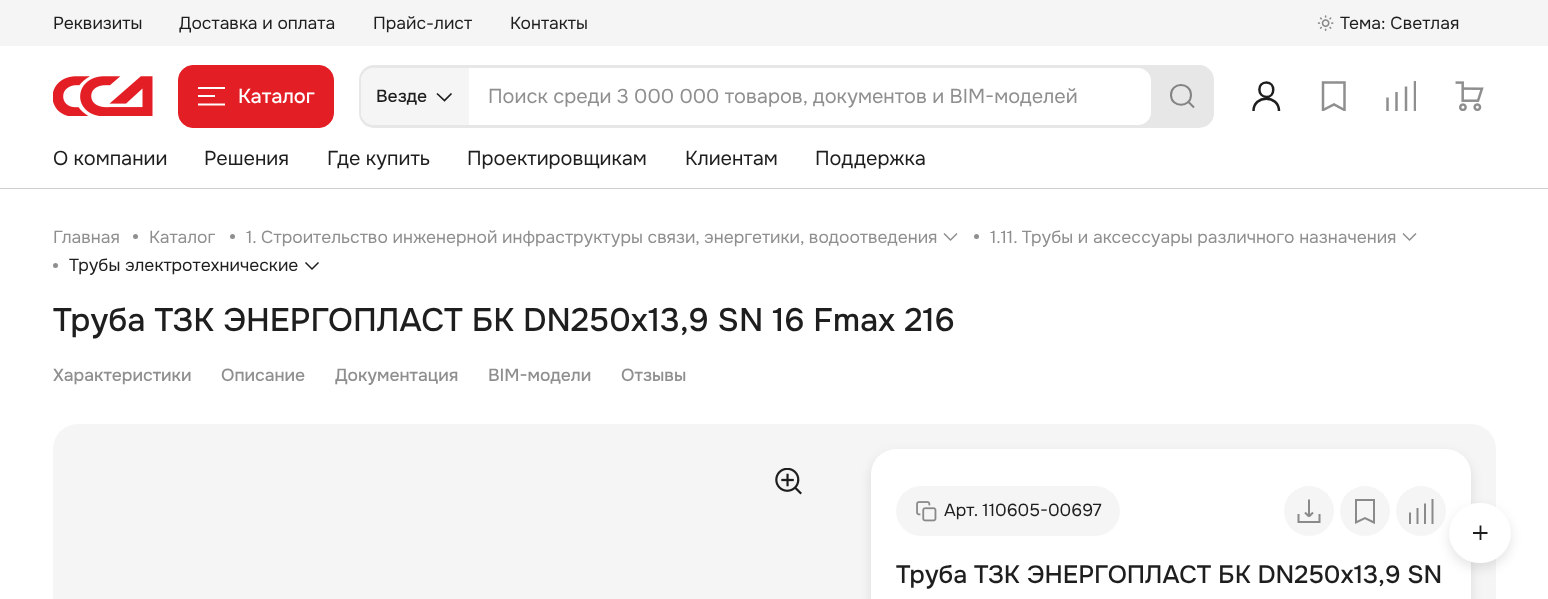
(async () => {
    const canvas = document.querySelector("canvas");
    canvas.width = 1548;
    canvas.height = 599;
    const context = canvas.getContext("2d");
    context.miterLimit = 4;
    context.fontKerning = "normal";
    function write(s, x, y, font, color) {
        context.font = font;
        context.fillStyle = color;
        context.fillText(s, x, y);
    }
    function block(x, y, w, h, color) {
        context.fillStyle = color;
        context.fillRect(x, y, w, h);
    }
    function card(x, y, w, h, r, color) {
        context.fillStyle = color;
        context.beginPath();
        context.roundRect(x, y, w, h, r);
        context.fill();
    }
    async function photo(src, x, y, w, h) {
        const img = new Image();
        img.src = src;
        await img.decode();
        context.drawImage(img, x, y, w, h);
    }

    block(0, 0, 1548, 599, "rgb(255, 255, 255)");
    block(0, 188, 1548, 1, "rgb(207, 207, 207)");
    block(0, 0, 1548, 46, "rgb(245, 245, 245)");
    write("Реквизиты", 53, 29, "17.5px Onest", "rgb(30, 30, 30)");
    write("Доставка и оплата", 179, 29, "17.5px Onest", "rgb(30, 30, 30)");
    write("Прайс-лист", 373, 29, "17.5px Onest", "rgb(30, 30, 30)");
    write("Контакты", 510, 29, "17.5px Onest", "rgb(30, 30, 30)");
    await photo("media/1.png", 1317, 15, 17, 16);
    write("Тема: Светлая", 1340, 29, "17.5px Onest", "rgb(30, 30, 30)");
    await photo("media/2.png", 53, 76, 100, 40);
    context.fillStyle = "rgb(227, 30, 36)";
    context.beginPath();
    context.roundRect(178.5, 65.5, 155, 62, 14.5);
    context.fill();
    context.strokeStyle = "rgb(227, 30, 36)";
    context.stroke();
    context.save();
    context.beginPath();
    context.rect(198, 83, 27, 27);
    context.clip();
    context.beginPath();
    context.moveTo(197.5, 88);
    context.lineTo(225, 88);
    context.moveTo(197.5, 104.5);
    context.lineTo(225, 104.5);
    context.moveTo(197.5, 96);
    context.lineTo(215, 96);
    context.strokeStyle = "rgb(255, 255, 255)";
    context.lineWidth = 2.2;
    context.stroke();
    context.restore();
    write("Каталог", 238, 103, "500 20px Onest", "rgb(255, 255, 255)");
    card(359, 65, 855, 63, 15, "rgb(231, 231, 231)");
    card(361, 68, 790, 57, 13, "rgb(255, 255, 255)");
    context.fillStyle = "rgb(245, 245, 245)";
    context.beginPath();
    context.roundRect(361, 68, 108, 57, [13, 0, 0, 13]);
    context.fill();
    write("Везде", 376, 102, "500 17.5px Onest", "rgb(30, 30, 30)");
    context.beginPath();
    context.moveTo(437, 93.5);
    context.lineTo(444.5, 100.5);
    context.lineTo(451.5, 93.5);
    context.strokeStyle = "rgb(30, 30, 30)";
    context.lineWidth = 1.7;
    context.stroke();
    write("Поиск среди 3 000 000 товаров, документов и BIM-моделей", 488, 103, "20px Onest", "rgb(143, 143, 143)");
    context.beginPath();
    context.moveTo(1194, 107.5);
    context.lineTo(1188, 101.5);
    context.moveTo(1191, 95);
    context.bezierCurveTo(1191, 108, 1171, 108, 1171, 95);
    context.bezierCurveTo(1171, 81.5, 1191, 82, 1191, 95);
    context.closePath();
    context.strokeStyle = "rgb(131, 131, 131)";
    context.lineWidth = 2;
    context.stroke();
    context.beginPath();
    context.moveTo(1253.5, 111);
    context.bezierCurveTo(1253.5, 94.5, 1279, 94.5, 1279, 111);
    context.moveTo(1266.5, 97);
    context.bezierCurveTo(1275.5, 97, 1275.5, 82.5, 1266.5, 82.5);
    context.bezierCurveTo(1257, 82.5, 1257, 96.5, 1266.5, 97);
    context.closePath();
    context.strokeStyle = "rgb(30, 30, 30)";
    context.lineWidth = 2.5;
    context.stroke();
    context.save();
    context.beginPath();
    context.rect(1319, 81, 30, 30);
    context.clip();
    context.beginPath();
    context.moveTo(1344.5, 110);
    context.lineTo(1334, 104.5);
    context.lineTo(1323, 110);
    context.lineTo(1323, 82.5);
    context.lineTo(1344.5, 82.5);
    context.closePath();
    context.strokeStyle = "rgb(143, 143, 143)";
    context.stroke();
    context.restore();
    context.save();
    context.beginPath();
    context.rect(1386, 81, 30, 30);
    context.clip();
    context.beginPath();
    context.moveTo(1396.5, 92);
    context.lineTo(1396.5, 111);
    context.moveTo(1387.5, 97.5);
    context.lineTo(1387.5, 111);
    context.moveTo(1415, 111);
    context.lineTo(1415, 81);
    context.moveTo(1406, 86.5);
    context.lineTo(1406, 111);
    context.strokeStyle = "rgb(143, 143, 143)";
    context.stroke();
    context.restore();
    await photo("media/3.png", 1455, 81, 29, 30);
    write("О компании", 53, 165, "20px Onest", "rgb(30, 30, 30)");
    write("Решения", 204, 165, "20px Onest", "rgb(30, 30, 30)");
    write("Где купить", 327, 165, "20px Onest", "rgb(30, 30, 30)");
    write("Проектировщикам", 467, 165, "20px Onest", "rgb(30, 30, 30)");
    write("Клиентам", 685, 165, "20px Onest", "rgb(30, 30, 30)");
    write("Поддержка", 815, 165, "20px Onest", "rgb(30, 30, 30)");
    write("Главная", 53, 243, "17.5px Onest", "rgb(143, 143, 143)");
    context.beginPath();
    context.arc(135.5, 236.5, 2.5, 0, Math.PI * 2);
    context.fill();
    write("Каталог", 149, 243, "17.5px Onest", "rgb(143, 143, 143)");
    context.beginPath();
    context.arc(232.5, 236.5, 2.5, 0, Math.PI * 2);
    context.fill();
    write("1. Строительство инженерной инфраструктуры связи, энергетики, водоотведения", 246, 243, "17.5px Onest", "rgb(143, 143, 143)");
    context.beginPath();
    context.moveTo(944, 233.5);
    context.lineTo(950.5, 240);
    context.lineTo(957, 233.5);
    context.strokeStyle = "rgb(143, 143, 143)";
    context.lineWidth = 1.5;
    context.stroke();
    context.beginPath();
    context.arc(976.5, 236.5, 2.5, 0, Math.PI * 2);
    context.fill();
    write("1.11. Трубы и аксессуары различного назначения", 990, 243, "17.5px Onest", "rgb(143, 143, 143)");
    context.beginPath();
    context.moveTo(1403, 233.5);
    context.lineTo(1409.5, 240);
    context.lineTo(1416, 233.5);
    context.stroke();
    context.beginPath();
    context.arc(55.5, 265.5, 2.5, 0, Math.PI * 2);
    context.fill();
    write("Трубы электротехнические", 69, 271, "17.5px Onest", "rgb(30, 30, 30)");
    context.beginPath();
    context.moveTo(305.5, 262.5);
    context.lineTo(312, 269);
    context.lineTo(318.5, 262.5);
    context.strokeStyle = "rgb(30, 30, 30)";
    context.stroke();
    context.save();
    context.beginPath();
    context.rect(53, 301, 1443, 39);
    context.clip();
    write("Труба ТЗК ЭНЕРГОПЛАСТ БК DN250х13,9 SN 16 Fmax 216", 53, 331, "500 32.5px Onest", "rgb(30, 30, 30)");
    context.restore();
    write("Характеристики", 53, 381, "500 17.5px Onest", "rgb(143, 143, 143)");
    write("Описание", 221, 381, "500 17.5px Onest", "rgb(143, 143, 143)");
    write("Документация", 335, 381, "500 17.5px Onest", "rgb(143, 143, 143)");
    write("BIM-модели", 488, 381, "500 17.5px Onest", "rgb(143, 143, 143)");
    write("Отзывы", 621, 381, "500 17.5px Onest", "rgb(143, 143, 143)");
    card(53, 424, 1443, 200, 25, "rgb(245, 245, 245)");
    await photo("media/4.png", 775, 468, 27, 27);
    context.fillStyle = "rgba(0, 0, 0, 0.1)";
    context.filter = "blur(6px)";
    context.beginPath();
    context.roundRect(871, 454, 600, 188, 25);
    context.fill();
    context.filter = "none";
    card(871, 449, 600, 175, 25, "rgb(255, 255, 255)");
    card(896, 486, 224, 50, 25, "rgb(245, 245, 245)");
    await photo("media/5.png", 916, 501, 21, 21);
    write("Арт. 110605-00697", 944, 516, "17.5px Onest", "rgb(30, 30, 30)");
    context.fillStyle = "rgb(245, 245, 245)";
    context.beginPath();
    context.arc(1309, 511, 25, 0, Math.PI * 2);
    context.fill();
    context.beginPath();
    context.moveTo(1305, 512.5);
    context.lineTo(1309, 516.5);
    context.moveTo(1309, 516.5);
    context.lineTo(1313, 512.5);
    context.moveTo(1309, 516.5);
    context.lineTo(1309, 499.5);
    context.moveTo(1319.5, 514);
    context.lineTo(1319.5, 522);
    context.lineTo(1298.5, 522);
    context.lineTo(1298.5, 514);
    context.strokeStyle = "rgb(138, 138, 138)";
    context.lineWidth = 2;
    context.stroke();
    context.beginPath();
    context.arc(1365, 511, 25, 0, Math.PI * 2);
    context.fill();
    context.beginPath();
    context.moveTo(1374, 522.5);
    context.lineTo(1365, 518);
    context.lineTo(1356, 522.5);
    context.lineTo(1356, 500);
    context.lineTo(1374, 500);
    context.closePath();
    context.stroke();
    context.beginPath();
    context.arc(1421, 511, 25, 0, Math.PI * 2);
    context.fill();
    context.beginPath();
    context.moveTo(1417.5, 508);
    context.lineTo(1417.5, 524);
    context.moveTo(1410, 512.5);
    context.lineTo(1410, 524);
    context.moveTo(1432.5, 524);
    context.lineTo(1432.5, 499);
    context.moveTo(1425, 503.5);
    context.lineTo(1425, 524);
    context.stroke();
    write("Труба ТЗК ЭНЕРГОПЛАСТ БК DN250х13,9 SN", 896, 583, "500 25px Onest", "rgb(30, 30, 30)");
    context.fillStyle = "rgba(0, 0, 0, 0.1)";
    context.filter = "blur(6px)";
    context.beginPath();
    context.roundRect(1449, 508, 62, 60, 30);
    context.fill();
    context.filter = "none";
    context.fillStyle = "rgb(255, 255, 255)";
    context.beginPath();
    context.roundRect(1449.5, 503.5, 61, 59, 29.5);
    context.fill();
    context.strokeStyle = "rgb(255, 255, 255)";
    context.lineWidth = 1;
    context.stroke();
    context.beginPath();
    context.moveTo(1480.5, 525.5);
    context.lineTo(1480.5, 540);
    context.moveTo(1473, 533);
    context.lineTo(1487.5, 533);
    context.strokeStyle = "rgb(30, 30, 30)";
    context.lineWidth = 1.8;
    context.stroke();
})();
